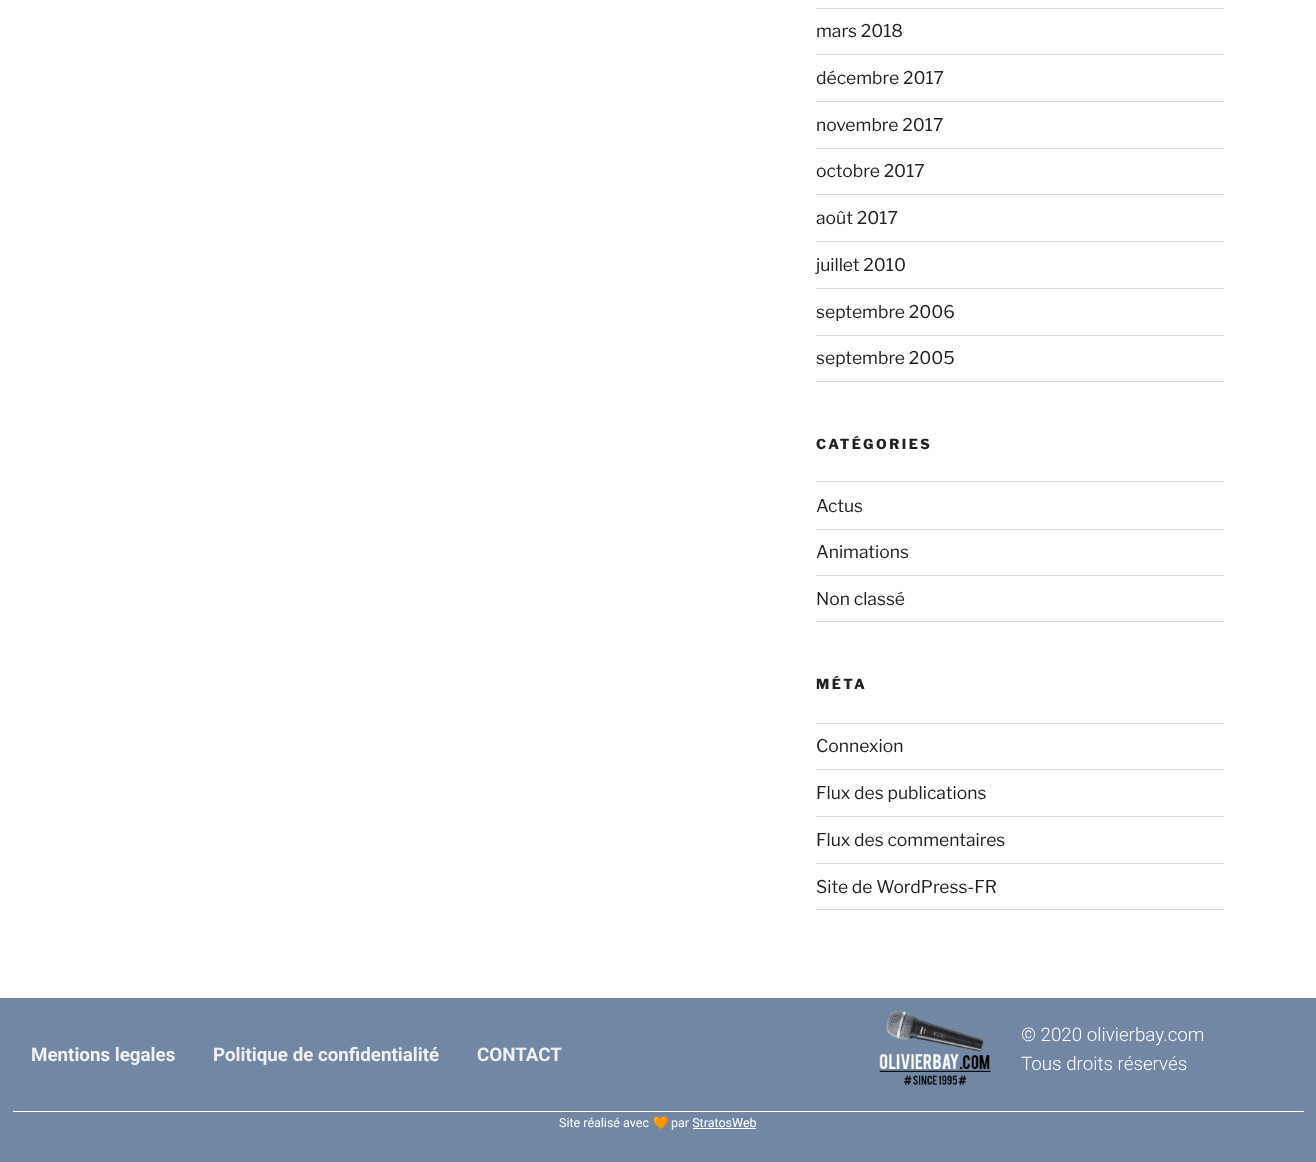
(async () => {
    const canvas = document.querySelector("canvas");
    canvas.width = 1316;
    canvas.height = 1162;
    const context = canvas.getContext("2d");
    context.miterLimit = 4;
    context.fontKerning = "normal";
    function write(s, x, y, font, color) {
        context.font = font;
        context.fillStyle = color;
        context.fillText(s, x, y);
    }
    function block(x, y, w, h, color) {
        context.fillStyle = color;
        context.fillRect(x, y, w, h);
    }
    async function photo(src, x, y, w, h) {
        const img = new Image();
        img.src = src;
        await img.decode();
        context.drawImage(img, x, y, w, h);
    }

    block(0, 0, 1316, 1162, "rgb(255, 255, 255)");
    block(816, 8, 408, 1, "rgb(221, 221, 221)");
    block(816, 54, 408, 1, "rgb(221, 221, 221)");
    write("mars 2018", 816, 37, "100 17.5px Libre Franklin", "rgb(34, 34, 34)");
    block(816, 101, 408, 1, "rgb(221, 221, 221)");
    write("décembre 2017", 816, 84, "100 17.5px Libre Franklin", "rgb(34, 34, 34)");
    block(816, 148, 408, 1, "rgb(221, 221, 221)");
    write("novembre 2017", 816, 131, "100 17.5px Libre Franklin", "rgb(34, 34, 34)");
    block(816, 194, 408, 1, "rgb(221, 221, 221)");
    write("octobre 2017", 816, 177, "100 17.5px Libre Franklin", "rgb(34, 34, 34)");
    block(816, 241, 408, 1, "rgb(221, 221, 221)");
    write("août 2017", 816, 224, "100 17.5px Libre Franklin", "rgb(34, 34, 34)");
    block(816, 288, 408, 1, "rgb(221, 221, 221)");
    write("juillet 2010", 816, 271, "100 17.5px Libre Franklin", "rgb(34, 34, 34)");
    block(816, 335, 408, 1, "rgb(221, 221, 221)");
    write("septembre 2006", 816, 318, "100 17.5px Libre Franklin", "rgb(34, 34, 34)");
    block(816, 381, 408, 1, "rgb(221, 221, 221)");
    write("septembre 2005", 816, 364, "100 17.5px Libre Franklin", "rgb(34, 34, 34)");
    context.letterSpacing = "2.5px";
    write("CATÉGORIES", 816, 449, "100 13.75px 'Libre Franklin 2'", "rgb(34, 34, 34)");
    block(816, 481, 408, 1, "rgb(221, 221, 221)");
    block(816, 529, 408, 1, "rgb(221, 221, 221)");
    context.letterSpacing = "0px";
    write("Actus", 816, 512, "100 17.5px Libre Franklin", "rgb(34, 34, 34)");
    block(816, 575, 408, 1, "rgb(221, 221, 221)");
    write("Animations", 816, 558, "100 17.5px Libre Franklin", "rgb(34, 34, 34)");
    block(816, 621, 408, 1, "rgb(221, 221, 221)");
    write("Non classé", 816, 605, "100 17.5px Libre Franklin", "rgb(34, 34, 34)");
    context.letterSpacing = "2.5px";
    write("MÉTA", 816, 689, "100 13.75px 'Libre Franklin 2'", "rgb(34, 34, 34)");
    block(816, 723, 408, 1, "rgb(221, 221, 221)");
    block(816, 769, 408, 1, "rgb(221, 221, 221)");
    context.letterSpacing = "0px";
    write("Connexion", 816, 752, "100 17.5px Libre Franklin", "rgb(34, 34, 34)");
    block(816, 816, 408, 1, "rgb(221, 221, 221)");
    write("Flux des publications", 816, 799, "100 17.5px Libre Franklin", "rgb(34, 34, 34)");
    block(816, 863, 408, 1, "rgb(221, 221, 221)");
    write("Flux des commentaires", 816, 846, "100 17.5px Libre Franklin", "rgb(34, 34, 34)");
    block(816, 909, 408, 1, "rgb(221, 221, 221)");
    write("Site de WordPress-FR", 816, 893, "100 17.5px Libre Franklin", "rgb(34, 34, 34)");
    block(0, 998, 1316, 164, "rgb(114, 135, 164)");
    write("Mentions legales", 31, 1061, "bold 18.75px Roboto", "rgb(241, 241, 241)");
    write("Politique de confidentialité", 213, 1061, "bold 18.75px Roboto", "rgb(241, 241, 241)");
    write("CONTACT", 477, 1061, "bold 18.75px Roboto", "rgb(241, 241, 241)");
    await photo("media/1.png", 879, 1010, 112, 75);
    write("© 2020 olivierbay.com", 1021, 1041, "300 18.75px Roboto", "rgb(255, 255, 255)");
    write("Tous droits réservés", 1021, 1070, "300 18.75px Roboto", "rgb(255, 255, 255)");
    block(13, 1111, 1291, 1, "rgb(255, 255, 255)");
    write("Site réalisé avec", 559, 1127, "12.5px Roboto", "rgb(255, 255, 255)");
    write("🧡", 653, 1127, "12.5px Noto Color Emoji", "rgb(255, 255, 255)");
    write("par StratosWeb", 671, 1127, "12.5px Roboto", "rgb(255, 255, 255)");
    block(693, 1128, 63, 1, "rgb(255, 255, 255)");
})();
